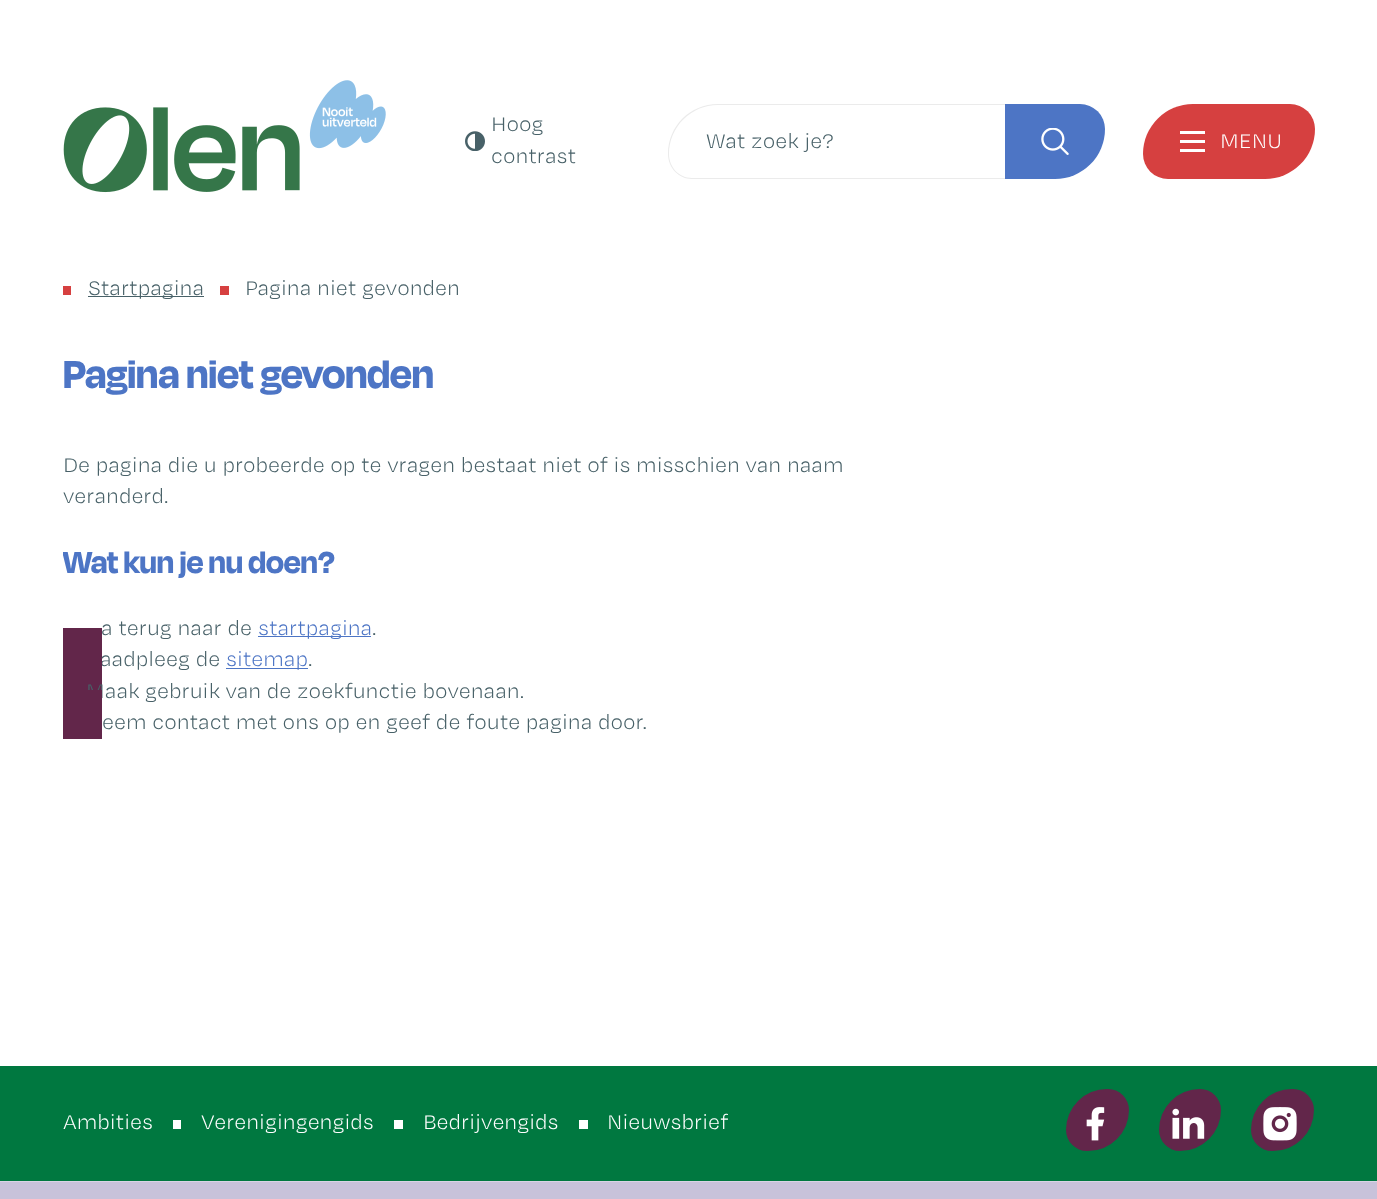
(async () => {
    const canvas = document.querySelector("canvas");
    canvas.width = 1377;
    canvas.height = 1199;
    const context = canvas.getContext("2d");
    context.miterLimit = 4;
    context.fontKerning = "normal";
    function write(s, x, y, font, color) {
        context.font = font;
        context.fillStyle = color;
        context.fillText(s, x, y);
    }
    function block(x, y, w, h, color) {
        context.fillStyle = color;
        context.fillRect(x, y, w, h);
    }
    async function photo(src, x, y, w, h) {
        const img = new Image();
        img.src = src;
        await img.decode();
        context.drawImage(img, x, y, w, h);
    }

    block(0, 0, 1377, 1199, "rgb(255, 255, 255)");
    await photo("media/1.png", 63, 80, 323, 113);
    await photo("media/2.png", 465, 131, 20, 20);
    write("Hoog", 491, 131, "300 22.5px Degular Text", "rgb(72, 97, 104)");
    write("contrast", 491, 163, "300 22.5px Degular Text", "rgb(72, 97, 104)");
    context.fillStyle = "rgb(235, 235, 235)";
    context.beginPath();
    context.moveTo(718, 104);
    context.lineTo(1005, 104);
    context.lineTo(1005, 179);
    context.lineTo(692, 179);
    context.bezierCurveTo(679, 179, 668, 168, 668, 154);
    context.bezierCurveTo(668, 126, 690, 104, 718, 104);
    context.closePath();
    context.moveTo(718, 105);
    context.lineTo(1005, 105);
    context.lineTo(1005, 178);
    context.lineTo(692, 178);
    context.bezierCurveTo(679, 178, 669, 167, 669, 154);
    context.bezierCurveTo(669, 127, 691, 105, 718, 105);
    context.closePath();
    context.fill("evenodd");
    write("Wat zoek je?", 706, 148, "300 22.5px Degular Text", "rgb(72, 97, 104)");
    context.fillStyle = "rgb(77, 117, 197)";
    context.beginPath();
    context.roundRect(1005, 104, 100, 75, [0, 25, 50, 0]);
    context.fill();
    await photo("media/3.png", 1041, 128, 28, 27);
    context.fillStyle = "rgb(214, 64, 64)";
    context.beginPath();
    context.roundRect(1143, 104, 172, 75, [50, 25, 50, 25]);
    context.fill();
    block(1180, 140, 25, 3, "rgb(255, 255, 255)");
    block(1180, 131, 25, 3, "rgb(255, 255, 255)");
    block(1180, 149, 25, 3, "rgb(255, 255, 255)");
    write("MENU", 1220, 148, "300 22.5px Degular Text", "rgb(255, 255, 255)");
    block(63, 286, 8, 9, "rgb(214, 64, 64)");
    block(88, 296, 116, 1, "rgb(72, 97, 104)");
    write("Startpagina", 88, 295, "300 22.5px Degular Text", "rgb(72, 97, 104)");
    block(220, 286, 9, 9, "rgb(214, 64, 64)");
    write("Pagina niet gevonden", 245, 295, "300 22.5px Degular Text", "rgb(72, 97, 104)");
    write("Pagina niet gevonden", 63, 388, "bold 45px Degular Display", "rgb(77, 117, 197)");
    write("De pagina die u probeerde op te vragen bestaat niet of is misschien van naam", 63, 472, "300 22.5px Degular Text", "rgb(72, 97, 104)");
    write("veranderd.", 63, 503, "300 22.5px Degular Text", "rgb(72, 97, 104)");
    context.save();
    context.beginPath();
    context.rect(63, 450, 822, 289);
    context.clip();
    write("Wat kun je nu doen?", 63, 573, "bold 35px Degular Display", "rgb(77, 117, 197)");
    context.restore();
    block(63, 628, 39, 31, "rgb(98, 38, 74)");
    write("a terug naar de", 101, 635, "300 22.5px Degular Text", "rgb(72, 97, 104)");
    block(258, 636, 113, 1, "rgb(77, 117, 197)");
    write("startpagina", 258, 635, "300 22.5px Degular Text", "rgb(77, 117, 197)");
    write(".", 372, 635, "300 22.5px Degular Text", "rgb(72, 97, 104)");
    write("aadpleeg de", 100, 666, "300 22.5px Degular Text", "rgb(72, 97, 104)");
    block(63, 659, 39, 31, "rgb(98, 38, 74)");
    block(226, 668, 82, 1, "rgb(77, 117, 197)");
    write("sitemap", 226, 666, "300 22.5px Degular Text", "rgb(77, 117, 197)");
    write(".", 308, 666, "300 22.5px Degular Text", "rgb(72, 97, 104)");
    write("Maak gebruik van de zoekfunctie bovenaan.", 86, 698, "300 22.5px Degular Text", "rgb(72, 97, 104)");
    block(63, 690, 39, 49, "rgb(98, 38, 74)");
    write("eem contact met ons op en geef de foute pagina door.", 102, 729, "300 22.5px Degular Text", "rgb(72, 97, 104)");
    block(0, 1066, 1377, 115, "rgb(0, 120, 64)");
    write("Ambities", 63, 1129, "300 22.5px Degular Text", "rgb(255, 255, 255)");
    block(173, 1120, 8, 9, "rgb(255, 255, 255)");
    write("Verenigingengids", 201, 1129, "300 22.5px Degular Text", "rgb(255, 255, 255)");
    block(394, 1120, 9, 9, "rgb(255, 255, 255)");
    write("Bedrijvengids", 423, 1129, "300 22.5px Degular Text", "rgb(255, 255, 255)");
    block(579, 1120, 9, 9, "rgb(255, 255, 255)");
    write("Nieuwsbrief", 607, 1129, "300 22.5px Degular Text", "rgb(255, 255, 255)");
    context.fillStyle = "rgb(98, 38, 74)";
    context.beginPath();
    context.roundRect(1066, 1089, 63, 62, [41, 21, 41, 21]);
    context.fill();
    await photo("media/4.png", 1086, 1107, 19, 34);
    context.beginPath();
    context.roundRect(1159, 1089, 62, 62, [41, 21, 41, 21]);
    context.fill();
    await photo("media/5.png", 1172, 1108, 33, 31);
    context.beginPath();
    context.roundRect(1251, 1089, 63, 62, [41, 21, 41, 21]);
    context.fill();
    await photo("media/6.png", 1263, 1107, 34, 34);
    block(0, 1182, 1377, 17, "rgb(200, 194, 218)");
    block(0, 1181, 1377, 1, "rgb(217, 212, 229)");
})();
